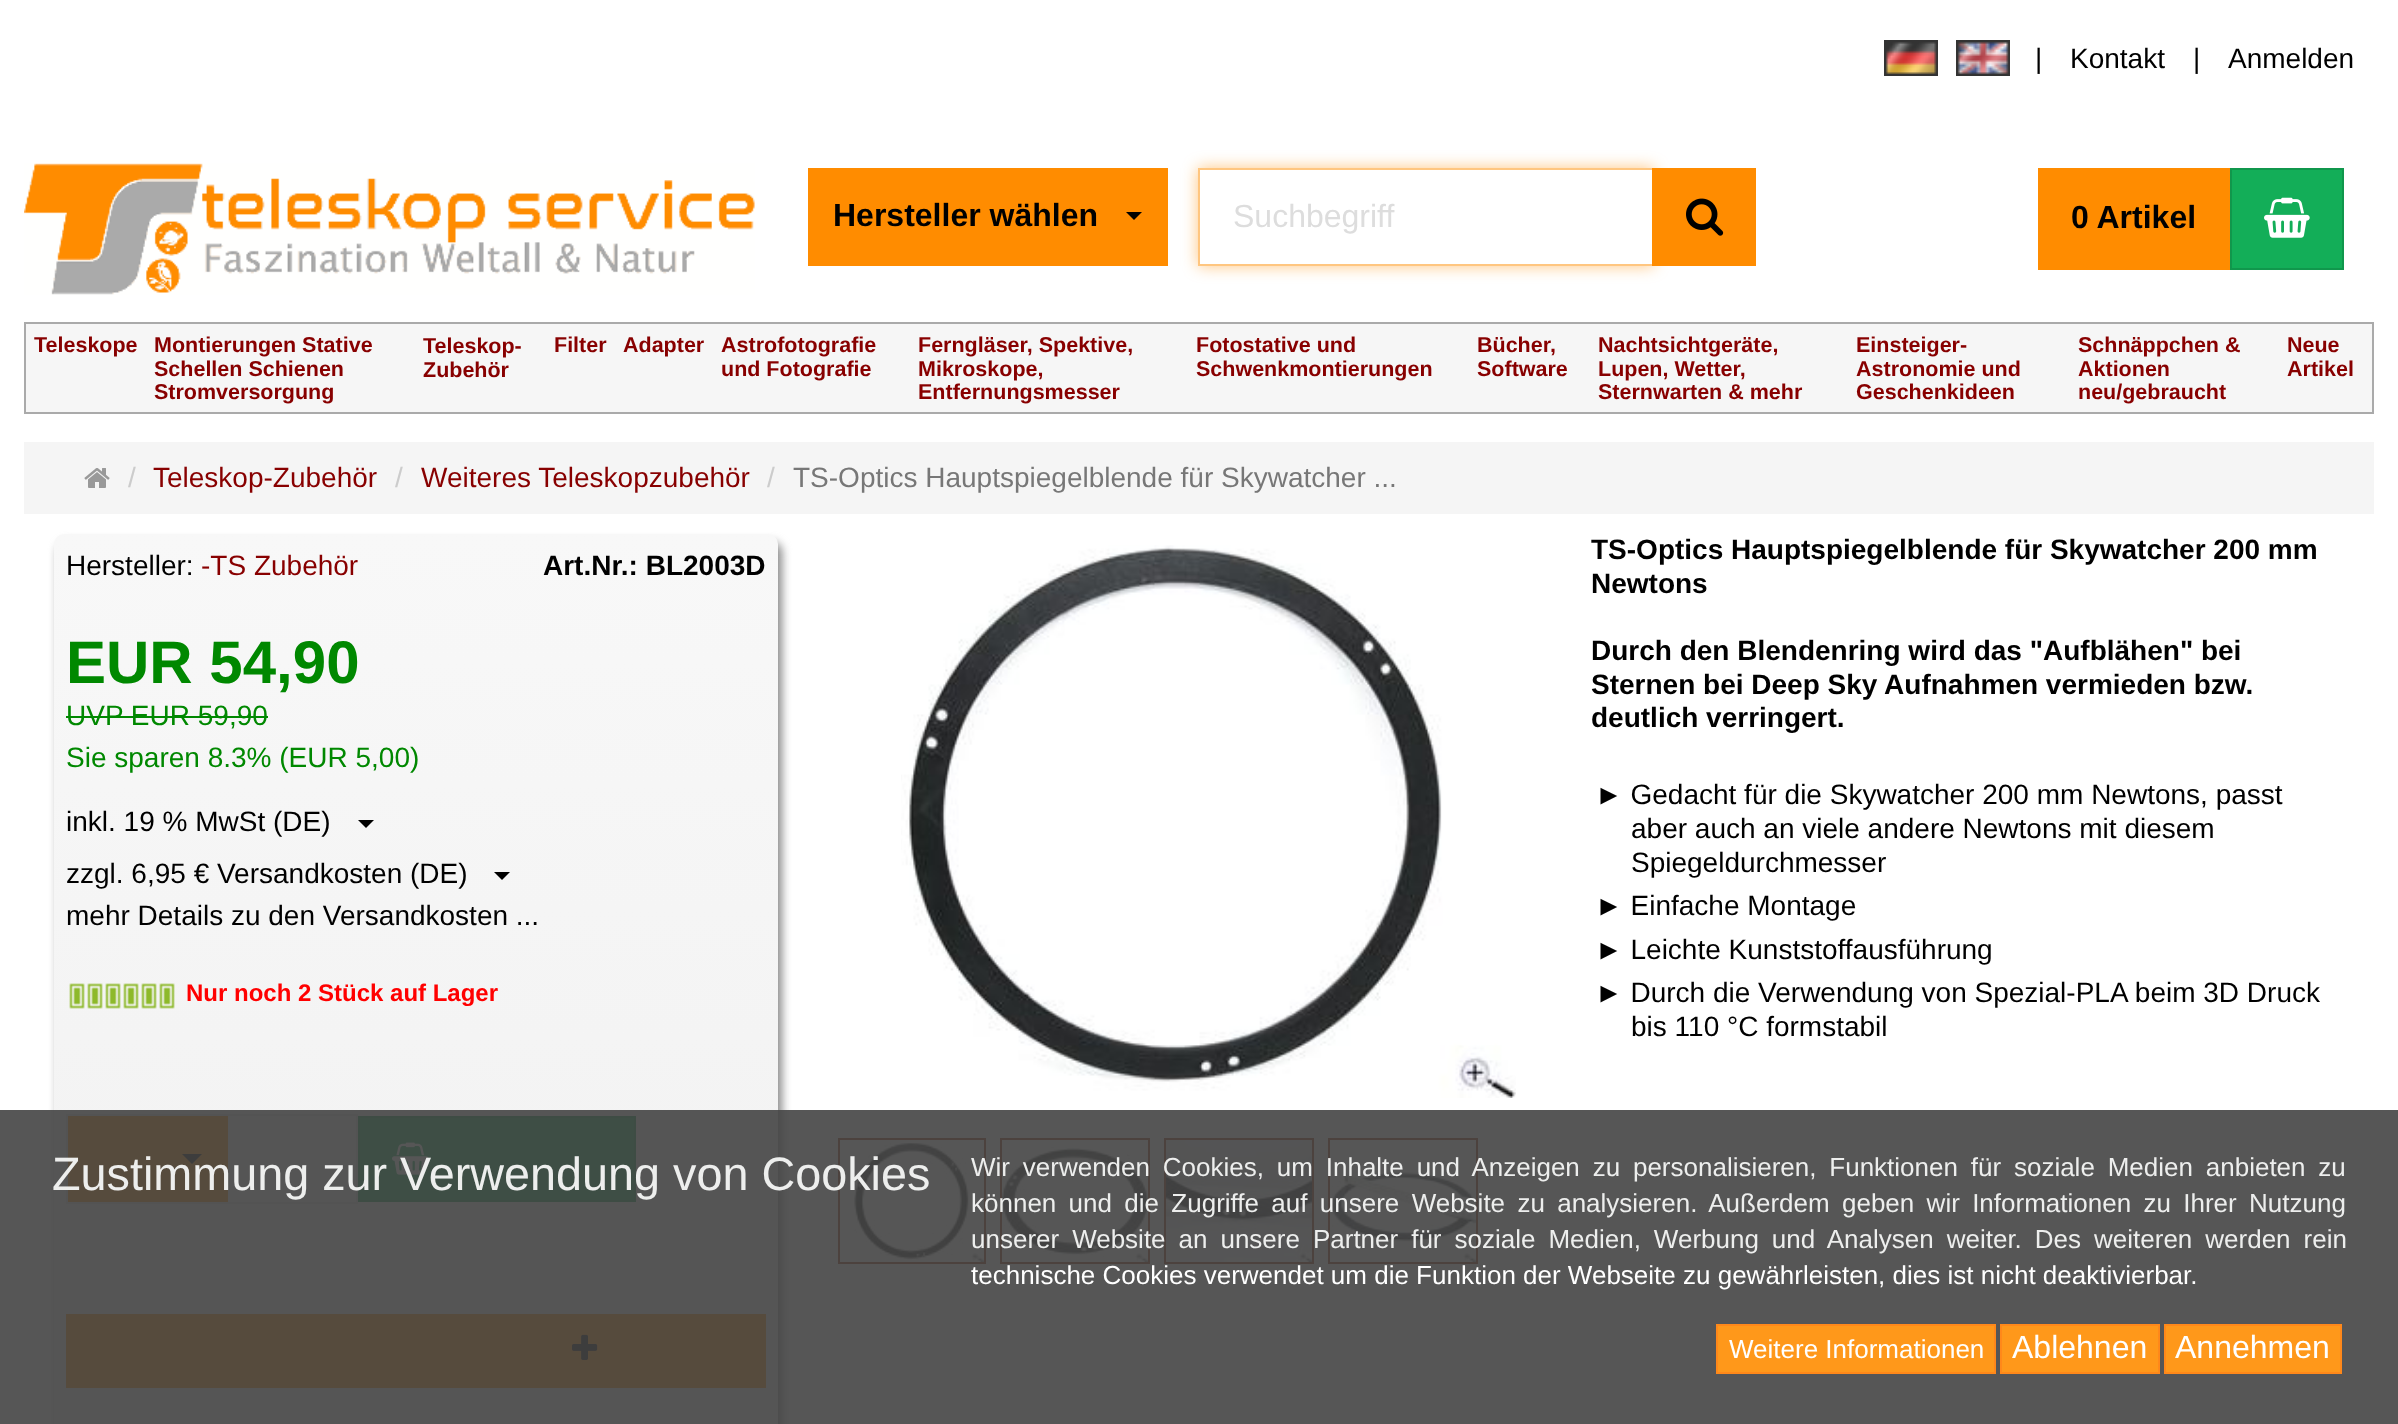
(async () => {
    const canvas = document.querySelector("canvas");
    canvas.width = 2398;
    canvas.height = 1424;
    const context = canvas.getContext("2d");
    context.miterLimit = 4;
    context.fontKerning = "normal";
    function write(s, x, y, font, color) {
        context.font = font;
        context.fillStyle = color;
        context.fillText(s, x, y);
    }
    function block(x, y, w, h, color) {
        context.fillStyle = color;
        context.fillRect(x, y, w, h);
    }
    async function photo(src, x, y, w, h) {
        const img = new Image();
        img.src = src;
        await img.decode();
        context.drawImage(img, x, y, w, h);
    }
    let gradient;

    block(0, 0, 2398, 1424, "rgb(255, 255, 255)");
    await photo("media/1.png", 1884, 40, 54, 36);
    await photo("media/2.png", 1956, 40, 54, 36);
    write("|", 2035, 68, "28px Liberation Sans", "rgb(0, 0, 0)");
    write("Kontakt", 2070, 68, "28px Liberation Sans", "rgb(0, 0, 0)");
    write("|", 2193, 68, "28px Liberation Sans", "rgb(0, 0, 0)");
    write("Anmelden", 2228, 68, "28px Liberation Sans", "rgb(0, 0, 0)");
    await photo("media/3.png", 24, 163, 731, 132);
    block(808, 168, 360, 98, "rgb(255, 140, 0)");
    write("Hersteller wählen", 833, 226, "bold 32px Liberation Sans", "rgb(0, 0, 0)");
    context.beginPath();
    context.moveTo(1126, 212);
    context.lineTo(1142, 212);
    context.lineTo(1134, 220);
    context.closePath();
    context.fill();
    context.save();
    context.beginPath();
    context.moveTo(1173, 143);
    context.lineTo(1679, 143);
    context.lineTo(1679, 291);
    context.lineTo(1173, 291);
    context.closePath();
    context.moveTo(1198, 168);
    context.lineTo(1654, 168);
    context.lineTo(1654, 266);
    context.lineTo(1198, 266);
    context.closePath();
    context.clip("evenodd");
    context.fillStyle = "rgba(255, 140, 0, 0.5)";
    context.filter = "blur(8px)";
    context.beginPath();
    context.rect(1198, 168, 456, 98);
    context.fill();
    context.filter = "none";
    context.restore();
    context.strokeStyle = "rgb(255, 198, 128)";
    context.lineWidth = 2;
    context.strokeRect(1199, 169, 454, 96);
    write("Suchbegriff", 1233, 227, "32px Liberation Sans", "rgb(221, 221, 221)");
    block(1652, 168, 104, 98, "rgb(255, 140, 0)");
    await photo("media/4.png", 1686, 198, 38, 38);
    block(2038, 168, 192, 102, "rgb(255, 140, 0)");
    write("0 Artikel", 2071, 228, "bold 32px Liberation Sans", "rgb(0, 0, 0)");
    context.fillStyle = "rgb(19, 174, 88)";
    context.beginPath();
    context.rect(2231, 169, 112, 100);
    context.fill();
    context.strokeStyle = "rgb(16, 151, 76)";
    context.stroke();
    await photo("media/5.png", 2264, 197, 46, 41);
    context.fillStyle = "rgb(246, 246, 246)";
    context.beginPath();
    context.rect(25, 323, 2348, 90);
    context.fill();
    context.strokeStyle = "rgb(170, 170, 170)";
    context.stroke();
    write("Teleskope", 34, 352, "bold 21.5px Liberation Sans", "rgb(136, 0, 0)");
    write("Montierungen Stative", 154, 352, "bold 21.5px Liberation Sans", "rgb(136, 0, 0)");
    write("Schellen Schienen", 154, 376, "bold 21.5px Liberation Sans", "rgb(136, 0, 0)");
    write("Stromversorgung", 154, 399, "bold 21.5px Liberation Sans", "rgb(136, 0, 0)");
    write("Teleskop-", 423, 353, "bold 21.5px Liberation Sans", "rgb(136, 0, 0)");
    write("Zubehör", 423, 377, "bold 21.5px Liberation Sans", "rgb(136, 0, 0)");
    write("Filter", 554, 352, "bold 21.5px Liberation Sans", "rgb(136, 0, 0)");
    write("Adapter", 623, 352, "bold 21.5px Liberation Sans", "rgb(136, 0, 0)");
    write("Astrofotografie", 721, 352, "bold 21.5px Liberation Sans", "rgb(136, 0, 0)");
    write("und Fotografie", 721, 376, "bold 21.5px Liberation Sans", "rgb(136, 0, 0)");
    write("Ferngläser, Spektive,", 918, 352, "bold 21.5px Liberation Sans", "rgb(136, 0, 0)");
    write("Mikroskope,", 918, 376, "bold 21.5px Liberation Sans", "rgb(136, 0, 0)");
    write("Entfernungsmesser", 918, 399, "bold 21.5px Liberation Sans", "rgb(136, 0, 0)");
    write("Fotostative und", 1196, 352, "bold 21.5px Liberation Sans", "rgb(136, 0, 0)");
    write("Schwenkmontierungen", 1196, 376, "bold 21.5px Liberation Sans", "rgb(136, 0, 0)");
    write("Bücher,", 1477, 352, "bold 21.5px Liberation Sans", "rgb(136, 0, 0)");
    write("Software", 1477, 376, "bold 21.5px Liberation Sans", "rgb(136, 0, 0)");
    write("Nachtsichtgeräte,", 1598, 352, "bold 21.5px Liberation Sans", "rgb(136, 0, 0)");
    write("Lupen, Wetter,", 1598, 376, "bold 21.5px Liberation Sans", "rgb(136, 0, 0)");
    write("Sternwarten & mehr", 1598, 399, "bold 21.5px Liberation Sans", "rgb(136, 0, 0)");
    write("Einsteiger-", 1856, 352, "bold 21.5px Liberation Sans", "rgb(136, 0, 0)");
    write("Astronomie und", 1856, 376, "bold 21.5px Liberation Sans", "rgb(136, 0, 0)");
    write("Geschenkideen", 1856, 399, "bold 21.5px Liberation Sans", "rgb(136, 0, 0)");
    write("Schnäppchen &", 2078, 352, "bold 21.5px Liberation Sans", "rgb(136, 0, 0)");
    write("Aktionen", 2078, 376, "bold 21.5px Liberation Sans", "rgb(136, 0, 0)");
    write("neu/gebraucht", 2078, 399, "bold 21.5px Liberation Sans", "rgb(136, 0, 0)");
    write("Neue", 2287, 352, "bold 21.5px Liberation Sans", "rgb(136, 0, 0)");
    write("Artikel", 2287, 376, "bold 21.5px Liberation Sans", "rgb(136, 0, 0)");
    block(24, 442, 2350, 72, "rgb(245, 245, 245)");
    await photo("media/6.png", 84, 468, 26, 20);
    write("/", 128, 487, "28px Liberation Sans", "rgb(204, 204, 204)");
    write("Teleskop-Zubehör", 153, 487, "28px Liberation Sans", "rgb(136, 0, 0)");
    write("/", 395, 487, "28px Liberation Sans", "rgb(204, 204, 204)");
    write("Weiteres Teleskopzubehör", 421, 487, "28px Liberation Sans", "rgb(136, 0, 0)");
    write("/", 767, 487, "28px Liberation Sans", "rgb(204, 204, 204)");
    write("TS-Optics Hauptspiegelblende für Skywatcher ...", 793, 487, "28px Liberation Sans", "rgb(119, 119, 119)");
    context.fillStyle = "rgb(136, 136, 136)";
    context.filter = "blur(5px)";
    context.beginPath();
    context.roundRect(58, 542, 724, 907, 10);
    context.fill();
    context.filter = "none";
    gradient = context.createLinearGradient(416, 534, 416, 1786);
    gradient.addColorStop(0, "rgb(248, 248, 248)");
    gradient.addColorStop(1, "rgb(238, 238, 238)");
    context.fillStyle = gradient;
    context.beginPath();
    context.roundRect(54, 534, 724, 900, 10);
    context.fill();
    write("Hersteller:", 66, 575, "28px Liberation Sans", "rgb(0, 0, 0)");
    write("-TS Zubehör", 201, 575, "28px Liberation Sans", "rgb(136, 0, 0)");
    write("Art.Nr.: BL2003D", 543, 575, "bold 28px Liberation Sans", "rgb(0, 0, 0)");
    write("EUR 54,90", 66, 683, "bold 60px Liberation Sans", "rgb(0, 136, 0)");
    write("UVP EUR 59,90", 66, 725, "28px Liberation Sans", "rgb(0, 136, 0)");
    block(66, 716, 202, 2, "rgb(0, 136, 0)");
    write("Sie sparen 8.3% (EUR 5,00)", 66, 767, "28px Liberation Sans", "rgb(0, 136, 0)");
    write("inkl. 19 % MwSt (DE)", 66, 831, "28px Liberation Sans", "rgb(0, 0, 0)");
    context.beginPath();
    context.moveTo(358, 820);
    context.lineTo(374, 820);
    context.lineTo(366, 828);
    context.closePath();
    context.fill();
    write("zzgl. 6,95 € Versandkosten (DE)", 66, 883, "28px Liberation Sans", "rgb(0, 0, 0)");
    context.beginPath();
    context.moveTo(494, 872);
    context.lineTo(510, 872);
    context.lineTo(502, 880);
    context.closePath();
    context.fill();
    write("mehr Details zu den Versandkosten ...", 66, 925, "28px Liberation Sans", "rgb(0, 0, 0)");
    await photo("media/7.png", 69, 983, 106, 26);
    write("Nur noch 2 Stück auf Lager", 186, 1001, "bold 24px Liberation Sans", "rgb(255, 0, 0)");
    block(228, 1116, 128, 86, "rgb(238, 238, 238)");
    block(66, 1114, 292, 2, "rgb(224, 224, 224)");
    block(356, 1114, 2, 90, "rgb(224, 224, 224)");
    block(66, 1202, 292, 2, "rgb(224, 224, 224)");
    block(66, 1114, 2, 90, "rgb(224, 224, 224)");
    block(68, 1116, 160, 86, "rgb(255, 140, 0)");
    context.fillStyle = "rgb(0, 0, 0)";
    context.beginPath();
    context.moveTo(182, 1154);
    context.lineTo(202, 1154);
    context.lineTo(192, 1164);
    context.closePath();
    context.fill();
    context.fillStyle = "rgb(19, 174, 88)";
    context.beginPath();
    context.rect(359, 1117, 276, 84);
    context.fill();
    context.strokeStyle = "rgb(16, 151, 76)";
    context.stroke();
    await photo("media/8.png", 392, 1142, 37, 33);
    block(66, 1268, 700, 2, "rgb(238, 238, 238)");
    block(66, 1314, 700, 74, "rgb(255, 140, 0)");
    await photo("media/9.png", 572, 1334, 26, 26);
    await photo("media/10.png", 901, 545, 615, 553);
    context.strokeStyle = "rgb(153, 51, 17)";
    context.strokeRect(839, 1139, 146, 124);
    context.strokeRect(1001, 1139, 148, 124);
    context.strokeRect(1165, 1139, 148, 124);
    context.strokeRect(1329, 1139, 148, 124);
    await photo("media/11.png", 853, 1140, 131, 122);
    await photo("media/12.png", 1002, 1142, 146, 120);
    await photo("media/13.png", 1166, 1140, 146, 122);
    await photo("media/14.png", 1330, 1166, 146, 96);
    write("TS-Optics Hauptspiegelblende für Skywatcher 200 mm", 1591, 559, "bold 28px Liberation Sans", "rgb(0, 0, 0)");
    write("Newtons", 1591, 593, "bold 28px Liberation Sans", "rgb(0, 0, 0)");
    write("Durch den Blendenring wird das \"Aufblähen\" bei", 1591, 660, "bold 28px Liberation Sans", "rgb(0, 0, 0)");
    write("Sternen bei Deep Sky Aufnahmen vermieden bzw.", 1591, 694, "bold 28px Liberation Sans", "rgb(0, 0, 0)");
    write("deutlich verringert.", 1591, 727, "bold 28px Liberation Sans", "rgb(0, 0, 0)");
    write("► Gedacht für die Skywatcher 200 mm Newtons, passt", 1595, 804, "28px Liberation Sans", "rgb(0, 0, 0)");
    write("aber auch an viele andere Newtons mit diesem", 1631, 838, "28px Liberation Sans", "rgb(0, 0, 0)");
    write("Spiegeldurchmesser", 1631, 872, "28px Liberation Sans", "rgb(0, 0, 0)");
    write("► Einfache Montage", 1595, 915, "28px Liberation Sans", "rgb(0, 0, 0)");
    write("► Leichte Kunststoffausführung", 1595, 959, "28px Liberation Sans", "rgb(0, 0, 0)");
    write("► Durch die Verwendung von Spezial-PLA beim 3D Druck", 1595, 1002, "28px Liberation Sans", "rgb(0, 0, 0)");
    write("bis 110 °C formstabil", 1631, 1036, "28px Liberation Sans", "rgb(0, 0, 0)");
    block(0, 1110, 2398, 314, "rgba(68, 68, 68, 0.9)");
    write("Zustimmung zur Verwendung von Cookies", 52, 1190, "46.75px Liberation Sans", "rgb(237, 238, 237)");
    context.wordSpacing = "5.6px";
    write("Wir verwenden Cookies, um Inhalte und Anzeigen zu personalisieren, Funktionen für soziale Medien anbieten zu", 971, 1176, "26px Liberation Sans", "rgb(237, 238, 237)");
    context.wordSpacing = "5.1px";
    write("können und die Zugriffe auf unsere Website zu analysieren. Außerdem geben wir Informationen zu Ihrer Nutzung", 971, 1212, "26px Liberation Sans", "rgb(237, 238, 237)");
    context.wordSpacing = "5.75px";
    write("unserer Website an unsere Partner für soziale Medien, Werbung und Analysen weiter. Des weiteren werden rein", 971, 1248, "26px Liberation Sans", "rgb(237, 238, 237)");
    context.wordSpacing = "0px";
    write("technische Cookies verwendet um die Funktion der Webseite zu gewährleisten, dies ist nicht deaktivierbar.", 971, 1284, "26px Liberation Sans", "rgb(255, 255, 255)");
    context.fillStyle = "rgb(255, 152, 26)";
    context.beginPath();
    context.rect(1717, 1325, 278, 48);
    context.fill();
    context.strokeStyle = "rgb(255, 136, 26)";
    context.stroke();
    write("Weitere Informationen", 1729, 1358, "26px Liberation Sans", "rgb(255, 255, 255)");
    context.fillStyle = "rgb(255, 152, 26)";
    context.beginPath();
    context.rect(2001, 1325, 158, 48);
    context.fill();
    context.stroke();
    write("Ablehnen", 2012, 1358, "32px Liberation Sans", "rgb(255, 255, 255)");
    context.fillStyle = "rgb(255, 152, 26)";
    context.beginPath();
    context.rect(2165, 1325, 176, 48);
    context.fill();
    context.stroke();
    write("Annehmen", 2175, 1358, "32px Liberation Sans", "rgb(255, 255, 255)");
})();
